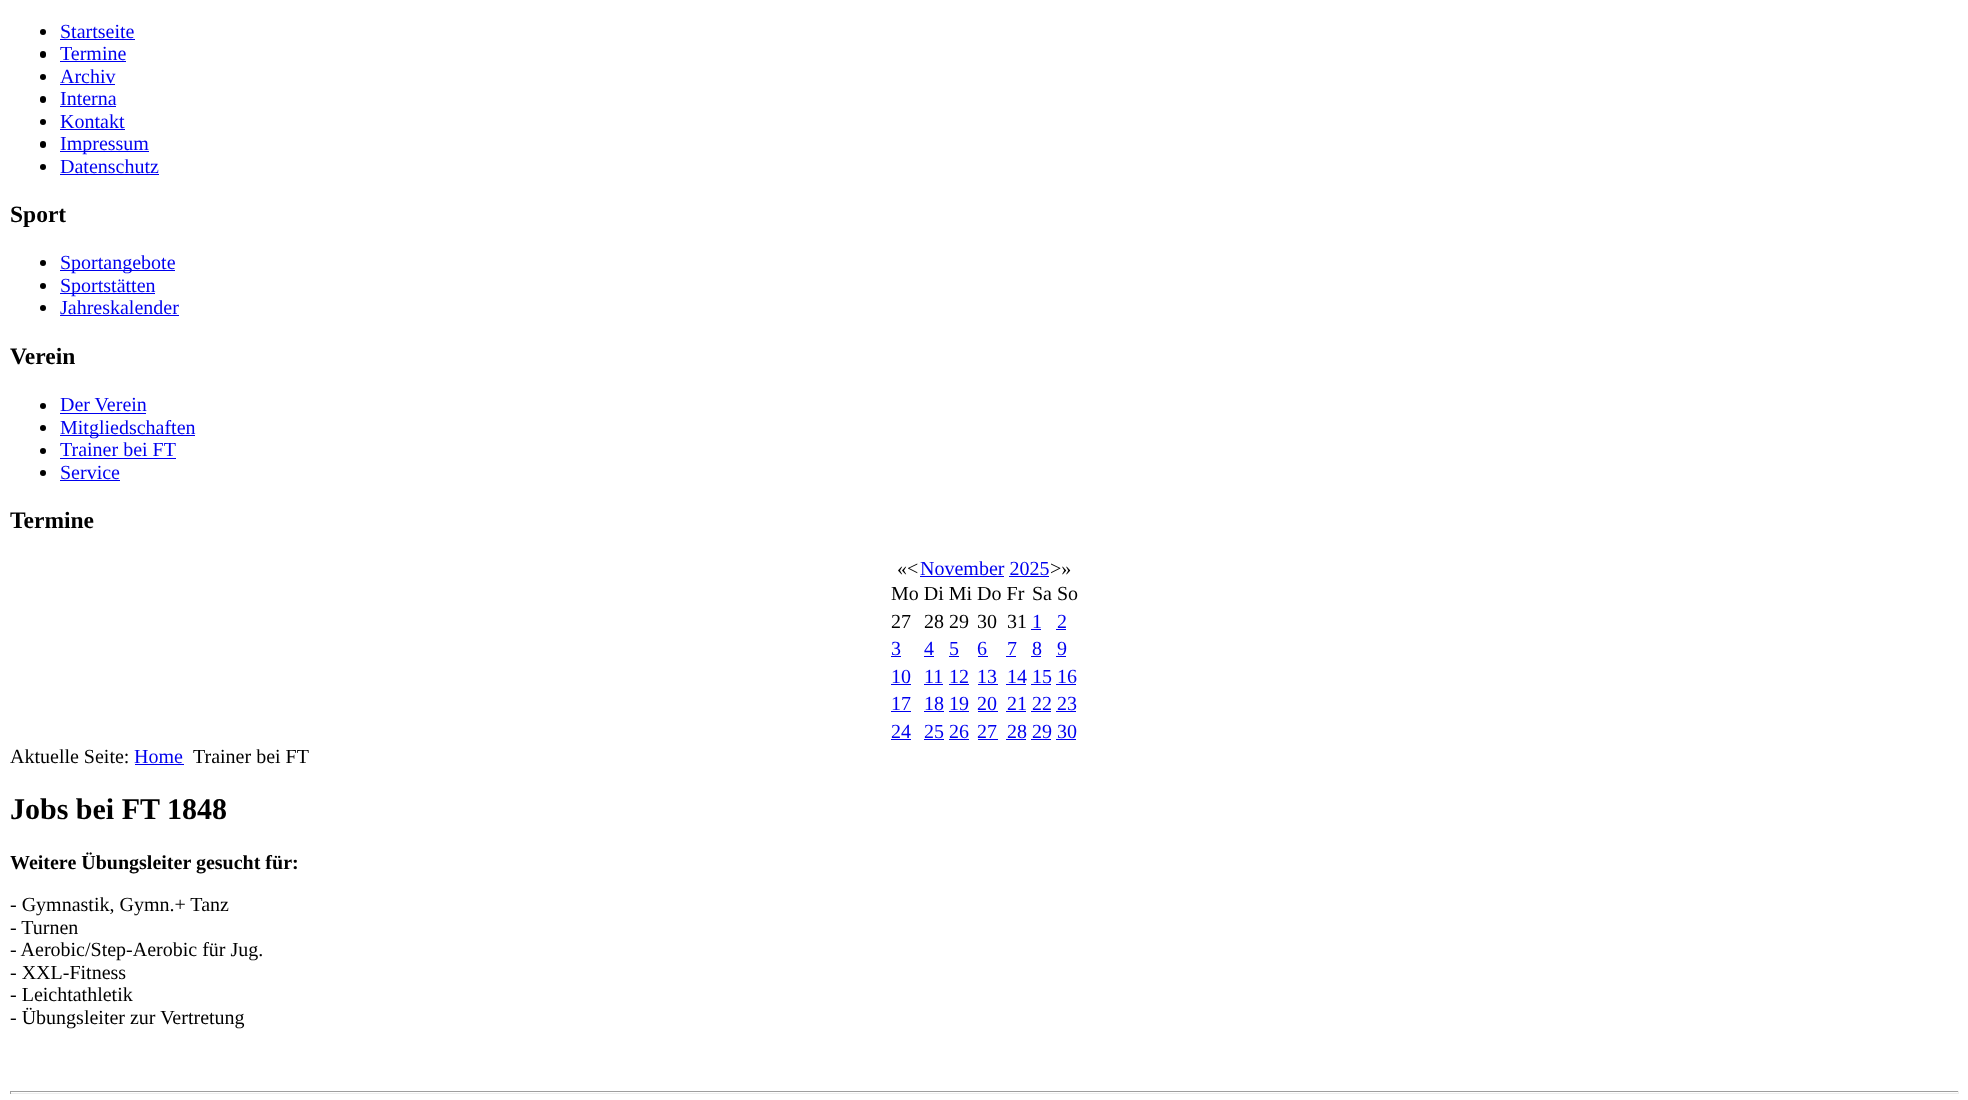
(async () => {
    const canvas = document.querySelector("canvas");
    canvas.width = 1968;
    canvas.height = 1100;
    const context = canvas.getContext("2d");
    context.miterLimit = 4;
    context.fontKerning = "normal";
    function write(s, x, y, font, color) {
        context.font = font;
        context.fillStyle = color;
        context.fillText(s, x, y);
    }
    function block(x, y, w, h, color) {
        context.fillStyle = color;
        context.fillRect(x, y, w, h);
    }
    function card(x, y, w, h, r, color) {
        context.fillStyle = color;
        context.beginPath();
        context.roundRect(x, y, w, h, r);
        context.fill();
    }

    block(0, 0, 1968, 1100, "rgb(255, 255, 255)");
    context.fillStyle = "rgb(0, 0, 0)";
    context.beginPath();
    context.arc(43, 32, 3, 0, Math.PI * 2);
    context.fill();
    write("Startseite", 60, 38, "20px Liberation Serif", "rgb(0, 0, 238)");
    block(60, 39, 75, 1, "rgb(0, 0, 238)");
    card(40, 51, 6, 7, 3, "rgb(0, 0, 0)");
    write("Termine", 60, 60, "20px Liberation Serif", "rgb(0, 0, 238)");
    block(60, 61, 66, 1, "rgb(0, 0, 238)");
    context.fillStyle = "rgb(0, 0, 0)";
    context.beginPath();
    context.arc(43, 77, 3, 0, Math.PI * 2);
    context.fill();
    write("Archiv", 60, 83, "20px Liberation Serif", "rgb(0, 0, 238)");
    block(60, 84, 55, 1, "rgb(0, 0, 238)");
    card(40, 96, 6, 7, 3, "rgb(0, 0, 0)");
    write("Interna", 60, 105, "20px Liberation Serif", "rgb(0, 0, 238)");
    block(60, 106, 56, 1, "rgb(0, 0, 238)");
    context.fillStyle = "rgb(0, 0, 0)";
    context.beginPath();
    context.arc(43, 122, 3, 0, Math.PI * 2);
    context.fill();
    write("Kontakt", 60, 128, "20px Liberation Serif", "rgb(0, 0, 238)");
    block(60, 129, 65, 1, "rgb(0, 0, 238)");
    card(40, 141, 6, 7, 3, "rgb(0, 0, 0)");
    block(60, 151, 89, 1, "rgb(0, 0, 238)");
    write("Impressum", 60, 150, "20px Liberation Serif", "rgb(0, 0, 238)");
    context.fillStyle = "rgb(0, 0, 0)";
    context.beginPath();
    context.arc(43, 167, 3, 0, Math.PI * 2);
    context.fill();
    write("Datenschutz", 60, 173, "20px Liberation Serif", "rgb(0, 0, 238)");
    block(60, 174, 99, 1, "rgb(0, 0, 238)");
    write("Sport", 10, 222, "bold 23.5px Liberation Serif", "rgb(0, 0, 0)");
    context.beginPath();
    context.arc(43, 263, 3, 0, Math.PI * 2);
    context.fill();
    block(60, 270, 115, 1, "rgb(0, 0, 238)");
    write("Sportangebote", 60, 269, "20px Liberation Serif", "rgb(0, 0, 238)");
    context.fillStyle = "rgb(0, 0, 0)";
    context.beginPath();
    context.arc(43, 286, 3, 0, Math.PI * 2);
    context.fill();
    block(60, 293, 95, 1, "rgb(0, 0, 238)");
    write("Sportstätten", 60, 292, "20px Liberation Serif", "rgb(0, 0, 238)");
    context.fillStyle = "rgb(0, 0, 0)";
    context.beginPath();
    context.arc(43, 308, 3, 0, Math.PI * 2);
    context.fill();
    write("Jahreskalender", 60, 314, "20px Liberation Serif", "rgb(0, 0, 238)");
    block(60, 315, 119, 1, "rgb(0, 0, 238)");
    write("Verein", 10, 364, "bold 23.5px Liberation Serif", "rgb(0, 0, 0)");
    context.beginPath();
    context.arc(43, 406, 3, 0, Math.PI * 2);
    context.fill();
    write("Der Verein", 60, 411, "20px Liberation Serif", "rgb(0, 0, 238)");
    block(60, 413, 86, 1, "rgb(0, 0, 238)");
    context.fillStyle = "rgb(0, 0, 0)";
    context.beginPath();
    context.arc(43, 428, 3, 0, Math.PI * 2);
    context.fill();
    block(60, 435, 135, 1, "rgb(0, 0, 238)");
    write("Mitgliedschaften", 60, 434, "20px Liberation Serif", "rgb(0, 0, 238)");
    context.fillStyle = "rgb(0, 0, 0)";
    context.beginPath();
    context.arc(43, 451, 3, 0, Math.PI * 2);
    context.fill();
    write("Trainer bei FT", 60, 456, "20px Liberation Serif", "rgb(0, 0, 238)");
    block(60, 458, 116, 1, "rgb(0, 0, 238)");
    context.fillStyle = "rgb(0, 0, 0)";
    context.beginPath();
    context.arc(43, 473, 3, 0, Math.PI * 2);
    context.fill();
    write("Service", 60, 479, "20px Liberation Serif", "rgb(0, 0, 238)");
    block(60, 480, 60, 1, "rgb(0, 0, 238)");
    write("Termine", 10, 528, "bold 23.5px Liberation Serif", "rgb(0, 0, 0)");
    write("«<", 897, 575, "20px Liberation Serif", "rgb(0, 0, 0)");
    write("November 2025", 920, 575, "20px Liberation Serif", "rgb(0, 0, 238)");
    block(920, 576, 84, 1, "rgb(0, 0, 238)");
    block(1009, 576, 40, 1, "rgb(0, 0, 238)");
    write(">»", 1050, 575, "20px Liberation Serif", "rgb(0, 0, 0)");
    write("Mo Di Mi Do Fr", 891, 600, "20px Liberation Serif", "rgb(0, 0, 0)");
    write("Sa So", 1032, 600, "20px Liberation Serif", "rgb(0, 0, 0)");
    write("27", 891, 628, "20px Liberation Serif", "rgb(0, 0, 0)");
    write("28 29", 924, 628, "20px Liberation Serif", "rgb(0, 0, 0)");
    write("30", 977, 628, "20px Liberation Serif", "rgb(0, 0, 0)");
    write("31", 1007, 628, "20px Liberation Serif", "rgb(0, 0, 0)");
    write("1", 1032, 628, "20px Liberation Serif", "rgb(0, 0, 238)");
    block(1031, 629, 10, 1, "rgb(0, 0, 238)");
    write("2", 1057, 628, "20px Liberation Serif", "rgb(0, 0, 238)");
    block(1056, 629, 10, 1, "rgb(0, 0, 238)");
    write("3", 891, 655, "20px Liberation Serif", "rgb(0, 0, 238)");
    block(891, 656, 10, 1, "rgb(0, 0, 238)");
    write("4", 924, 655, "20px Liberation Serif", "rgb(0, 0, 238)");
    block(924, 656, 10, 1, "rgb(0, 0, 238)");
    write("5", 949, 655, "20px Liberation Serif", "rgb(0, 0, 238)");
    block(949, 656, 10, 1, "rgb(0, 0, 238)");
    write("6", 977, 655, "20px Liberation Serif", "rgb(0, 0, 238)");
    block(978, 656, 10, 1, "rgb(0, 0, 238)");
    write("7", 1007, 655, "20px Liberation Serif", "rgb(0, 0, 238)");
    block(1006, 656, 10, 1, "rgb(0, 0, 238)");
    write("8", 1032, 655, "20px Liberation Serif", "rgb(0, 0, 238)");
    block(1031, 656, 10, 1, "rgb(0, 0, 238)");
    write("9", 1057, 655, "20px Liberation Serif", "rgb(0, 0, 238)");
    block(1056, 656, 10, 1, "rgb(0, 0, 238)");
    write("10", 891, 683, "20px Liberation Serif", "rgb(0, 0, 238)");
    block(891, 684, 20, 1, "rgb(0, 0, 238)");
    write("11", 924, 683, "20px Liberation Serif", "rgb(0, 0, 238)");
    block(924, 684, 19, 1, "rgb(0, 0, 238)");
    write("12", 949, 683, "20px Liberation Serif", "rgb(0, 0, 238)");
    block(949, 684, 20, 1, "rgb(0, 0, 238)");
    write("13", 977, 683, "20px Liberation Serif", "rgb(0, 0, 238)");
    block(978, 684, 20, 1, "rgb(0, 0, 238)");
    write("14 15 16", 1007, 683, "20px Liberation Serif", "rgb(0, 0, 238)");
    block(1006, 684, 20, 1, "rgb(0, 0, 238)");
    block(1031, 684, 20, 1, "rgb(0, 0, 238)");
    block(1056, 684, 20, 1, "rgb(0, 0, 238)");
    write("17", 891, 710, "20px Liberation Serif", "rgb(0, 0, 238)");
    block(891, 711, 20, 1, "rgb(0, 0, 238)");
    write("18 19", 924, 710, "20px Liberation Serif", "rgb(0, 0, 238)");
    block(924, 711, 20, 1, "rgb(0, 0, 238)");
    write("20", 977, 710, "20px Liberation Serif", "rgb(0, 0, 238)");
    block(978, 711, 20, 1, "rgb(0, 0, 238)");
    write("21 22 23", 1007, 710, "20px Liberation Serif", "rgb(0, 0, 238)");
    block(1006, 711, 20, 1, "rgb(0, 0, 238)");
    block(949, 711, 20, 1, "rgb(0, 0, 238)");
    block(1031, 711, 20, 1, "rgb(0, 0, 238)");
    block(1056, 711, 20, 1, "rgb(0, 0, 238)");
    write("24", 891, 738, "20px Liberation Serif", "rgb(0, 0, 238)");
    block(891, 739, 20, 1, "rgb(0, 0, 238)");
    write("25 26", 924, 738, "20px Liberation Serif", "rgb(0, 0, 238)");
    block(924, 739, 20, 1, "rgb(0, 0, 238)");
    write("27", 977, 738, "20px Liberation Serif", "rgb(0, 0, 238)");
    block(978, 739, 20, 1, "rgb(0, 0, 238)");
    write("28 29 30", 1007, 738, "20px Liberation Serif", "rgb(0, 0, 238)");
    block(1006, 739, 20, 1, "rgb(0, 0, 238)");
    block(949, 739, 20, 1, "rgb(0, 0, 238)");
    block(1031, 739, 20, 1, "rgb(0, 0, 238)");
    block(1056, 739, 20, 1, "rgb(0, 0, 238)");
    write("Aktuelle Seite:", 10, 763, "20px Liberation Serif", "rgb(0, 0, 0)");
    write("Home", 134, 763, "20px Liberation Serif", "rgb(0, 0, 238)");
    block(135, 764, 49, 1, "rgb(0, 0, 238)");
    write("Trainer bei FT", 193, 763, "20px Liberation Serif", "rgb(0, 0, 0)");
    write("Jobs bei FT 1848", 10, 819, "bold 30px Liberation Serif", "rgb(0, 0, 0)");
    write("Weitere Übungsleiter gesucht für:", 10, 869, "bold 20px Liberation Serif", "rgb(0, 0, 0)");
    write("- Gymnastik, Gymn.+ Tanz", 10, 911, "20px Liberation Serif", "rgb(0, 0, 0)");
    write("- Turnen", 10, 934, "20px Liberation Serif", "rgb(0, 0, 0)");
    write("- Aerobic/Step-Aerobic für Jug.", 10, 956, "20px Liberation Serif", "rgb(0, 0, 0)");
    write("- XXL-Fitness", 10, 979, "20px Liberation Serif", "rgb(0, 0, 0)");
    write("- Leichtathletik", 10, 1001, "20px Liberation Serif", "rgb(0, 0, 0)");
    write("- Übungsleiter zur Vertretung", 10, 1024, "20px Liberation Serif", "rgb(0, 0, 0)");
    block(10, 1091, 1949, 1, "rgb(159, 159, 159)");
    block(1958, 1091, 1, 3, "rgb(238, 238, 238)");
    block(10, 1093, 1949, 1, "rgb(238, 238, 238)");
    block(10, 1091, 1, 3, "rgb(159, 159, 159)");
})();
